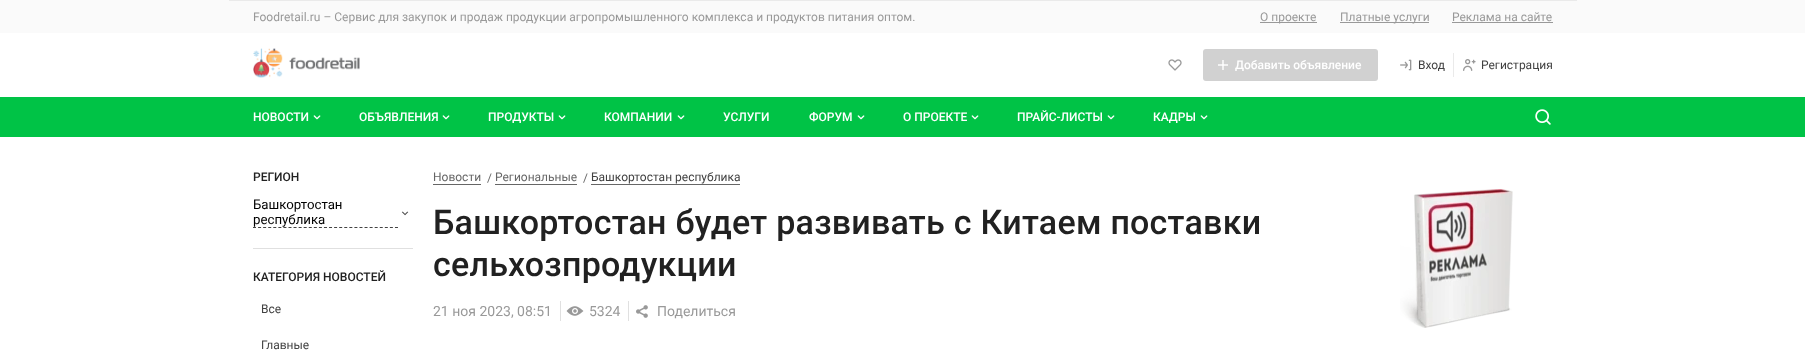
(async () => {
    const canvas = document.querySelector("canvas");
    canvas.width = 1805;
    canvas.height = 357;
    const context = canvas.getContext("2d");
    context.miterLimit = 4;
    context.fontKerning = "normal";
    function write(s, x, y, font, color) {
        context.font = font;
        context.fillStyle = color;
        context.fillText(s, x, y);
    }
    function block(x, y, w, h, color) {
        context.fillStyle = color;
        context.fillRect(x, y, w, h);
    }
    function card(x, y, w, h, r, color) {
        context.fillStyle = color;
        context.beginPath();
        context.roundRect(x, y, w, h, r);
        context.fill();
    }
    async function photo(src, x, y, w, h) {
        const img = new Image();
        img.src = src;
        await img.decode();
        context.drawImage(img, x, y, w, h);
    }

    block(0, 0, 1805, 357, "rgb(255, 255, 255)");
    block(0, 0, 1805, 33, "rgb(250, 250, 250)");
    block(229, 0, 1348, 1, "rgb(234, 234, 234)");
    write("Foodretail.ru – Сервис для закупок и продаж продукции агропромышленного комплекса и продуктов питания оптом.", 253, 21, "12px Roboto", "rgb(153, 153, 153)");
    block(1260, 22, 57, 1, "rgb(153, 153, 153)");
    write("О проекте", 1260, 21, "12px Roboto", "rgb(153, 153, 153)");
    block(1340, 22, 89, 1, "rgb(153, 153, 153)");
    write("Платные услуги", 1340, 21, "12px Roboto", "rgb(153, 153, 153)");
    write("Реклама на сайте", 1452, 21, "12px Roboto", "rgb(153, 153, 153)");
    block(1452, 22, 101, 1, "rgb(153, 153, 153)");
    await photo("media/1.png", 253, 48, 107, 30);
    await photo("media/2.png", 1168, 59, 14, 12);
    card(1203, 49, 175, 32, 3, "rgb(209, 209, 209)");
    await photo("media/3.png", 1218, 60, 10, 10);
    write("Добавить объявление", 1235, 69, "500 12px Roboto", "rgb(255, 255, 255)");
    await photo("media/4.png", 1400, 59, 12, 12);
    write("Вход", 1418, 69, "12px Roboto", "rgb(66, 66, 66)");
    block(1453, 53, 1, 24, "rgb(234, 234, 234)");
    await photo("media/5.png", 1463, 59, 13, 12);
    write("Регистрация", 1481, 69, "12px Roboto", "rgb(66, 66, 66)");
    block(0, 97, 1805, 40, "rgb(0, 195, 70)");
    write("НОВОСТИ", 253, 121, "500 12px Roboto", "rgb(255, 255, 255)");
    await photo("media/6.png", 313, 115, 8, 5);
    write("ОБЪЯВЛЕНИЯ", 359, 121, "500 12px Roboto", "rgb(255, 255, 255)");
    await photo("media/6.png", 442, 115, 8, 5);
    write("ПРОДУКТЫ", 488, 121, "500 12px Roboto", "rgb(255, 255, 255)");
    await photo("media/6.png", 558, 115, 8, 5);
    write("КОМПАНИИ", 604, 121, "500 12px Roboto", "rgb(255, 255, 255)");
    await photo("media/6.png", 677, 115, 8, 5);
    write("УСЛУГИ", 723, 121, "500 12px Roboto", "rgb(255, 255, 255)");
    write("ФОРУМ", 809, 121, "500 12px Roboto", "rgb(255, 255, 255)");
    await photo("media/6.png", 857, 115, 8, 5);
    write("О ПРОЕКТЕ", 903, 121, "500 12px Roboto", "rgb(255, 255, 255)");
    await photo("media/6.png", 971, 115, 8, 5);
    write("ПРАЙС-ЛИСТЫ", 1017, 121, "500 12px Roboto", "rgb(255, 255, 255)");
    await photo("media/6.png", 1107, 115, 8, 5);
    write("КАДРЫ", 1153, 121, "500 12px Roboto", "rgb(255, 255, 255)");
    await photo("media/6.png", 1200, 115, 8, 5);
    await photo("media/7.png", 1535, 109, 16, 16);
    block(253, 248, 160, 1, "rgb(224, 224, 224)");
    write("РЕГИОН", 253, 181, "500 12px Roboto", "rgb(33, 33, 33)");
    context.beginPath();
    context.moveTo(253, 227.5);
    context.lineTo(398, 227.5);
    context.strokeStyle = "rgb(66, 66, 66)";
    context.setLineDash([3, 2.07]);
    context.stroke();
    write("Башкортостан", 253, 209, "13.25px Roboto", "rgb(0, 0, 0)");
    write("республика", 253, 224, "13.25px Roboto", "rgb(0, 0, 0)");
    await photo("media/8.png", 401, 211, 8, 5);
    write("КАТЕГОРИЯ НОВОСТЕЙ", 253, 281, "500 12px Roboto", "rgb(33, 33, 33)");
    write("Все", 261, 313, "12px Roboto", "rgb(66, 66, 66)");
    write("Главные", 261, 349, "12px Roboto", "rgb(66, 66, 66)");
    write("Новости", 433, 181, "12px Roboto", "rgb(102, 102, 102)");
    block(433, 184, 48, 1, "rgb(102, 102, 102)");
    write("/", 487, 182, "12px Roboto", "rgb(102, 102, 102)");
    write("Региональные", 495, 181, "12px Roboto", "rgb(102, 102, 102)");
    block(495, 184, 82, 1, "rgb(102, 102, 102)");
    write("/", 583, 182, "12px Roboto", "rgb(102, 102, 102)");
    write("Башкортостан республика", 591, 181, "12px Roboto", "rgb(66, 66, 66)");
    block(591, 184, 149, 1, "rgb(102, 102, 102)");
    context.letterSpacing = "0.25px";
    write("Башкортостан будет развивать с Китаем поставки", 433, 234, "500 34px Roboto", "rgb(33, 33, 33)");
    write("сельхозпродукции", 433, 276, "500 34px Roboto", "rgb(33, 33, 33)");
    block(560, 301, 1, 20, "rgb(224, 224, 224)");
    context.letterSpacing = "0px";
    write("21 ноя 2023, 08:51", 433, 316, "14px Roboto", "rgb(153, 153, 153)");
    block(628, 301, 1, 20, "rgb(224, 224, 224)");
    await photo("media/9.png", 566, 306, 18, 10);
    write("5324", 589, 316, "14px Roboto", "rgb(153, 153, 153)");
    await photo("media/10.png", 636, 305, 12, 13);
    write("Поделиться", 657, 316, "14px Roboto", "rgb(153, 153, 153)");
    await photo("media/11.png", 1400, 189, 113, 139);
})();
